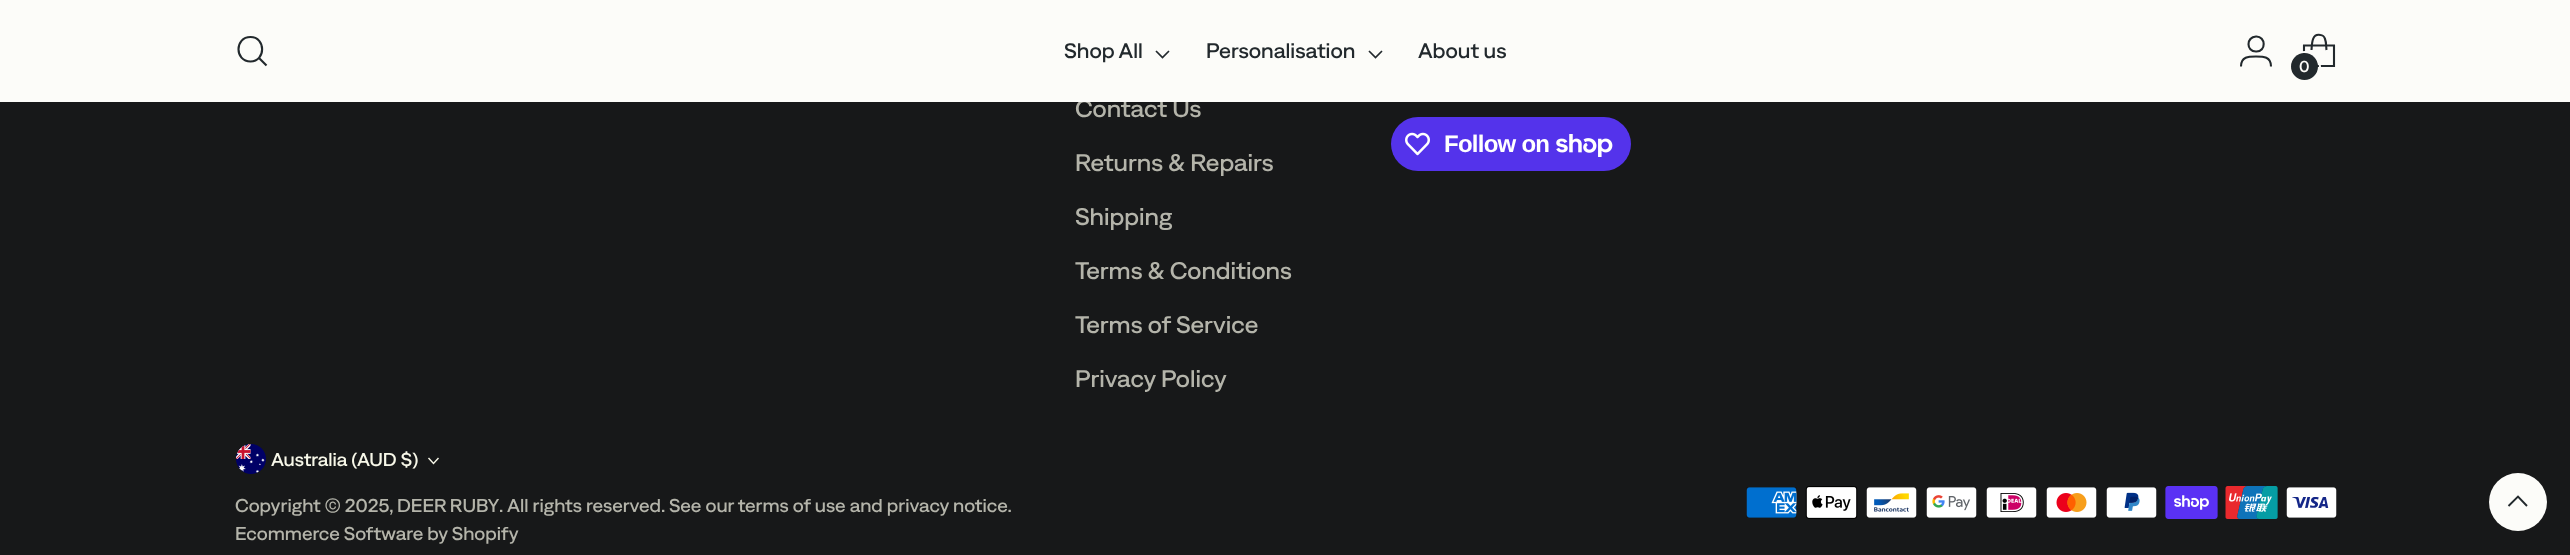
(async () => {
    const canvas = document.querySelector("canvas");
    canvas.width = 2570;
    canvas.height = 555;
    const context = canvas.getContext("2d");
    context.miterLimit = 4;
    context.fontKerning = "normal";
    function write(s, x, y, font, color) {
        context.font = font;
        context.fillStyle = color;
        context.fillText(s, x, y);
    }
    function block(x, y, w, h, color) {
        context.fillStyle = color;
        context.fillRect(x, y, w, h);
    }
    function card(x, y, w, h, r, color) {
        context.fillStyle = color;
        context.beginPath();
        context.roundRect(x, y, w, h, r);
        context.fill();
    }
    async function photo(src, x, y, w, h) {
        const img = new Image();
        img.src = src;
        await img.decode();
        context.drawImage(img, x, y, w, h);
    }

    block(0, 0, 2570, 555, "rgb(23, 24, 25)");
    write("Contact Us", 1075, 117, "500 24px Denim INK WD", "rgb(180, 180, 170)");
    block(0, 0, 2570, 102, "rgb(252, 252, 249)");
    context.beginPath();
    context.moveTo(250.5, 61.5);
    context.bezierCurveTo(266, 61.5, 266, 37, 250.5, 37);
    context.bezierCurveTo(234.5, 37, 234.5, 61.5, 250.5, 61.5);
    context.closePath();
    context.strokeStyle = "rgb(34, 41, 45)";
    context.lineWidth = 2.1;
    context.lineCap = "round";
    context.stroke();
    context.beginPath();
    context.moveTo(259, 58);
    context.lineTo(266.5, 65.5);
    context.lineCap = "butt";
    context.stroke();
    write("Shop All", 1064, 58, "500 21px Denim INK WD", "rgb(34, 41, 45)");
    context.beginPath();
    context.moveTo(1156, 51);
    context.lineTo(1162.5, 57.5);
    context.lineTo(1169, 51);
    context.lineWidth = 1.7;
    context.stroke();
    write("Personalisation", 1206, 58, "500 21px Denim INK WD", "rgb(34, 41, 45)");
    context.beginPath();
    context.moveTo(1369, 51);
    context.lineTo(1375.5, 57.5);
    context.lineTo(1382, 51);
    context.stroke();
    write("About us", 1418, 58, "500 21px Denim INK WD", "rgb(34, 41, 45)");
    context.beginPath();
    context.moveTo(2256, 51.5);
    context.bezierCurveTo(2266.5, 52, 2266, 36, 2256, 36.5);
    context.bezierCurveTo(2246, 37, 2246, 51.5, 2256, 51.5);
    context.closePath();
    context.moveTo(2241, 66.5);
    context.bezierCurveTo(2241, 56.5, 2248.5, 56.5, 2256, 56.5);
    context.bezierCurveTo(2263.5, 56.5, 2271, 56.5, 2271, 66.5);
    context.lineWidth = 2.1;
    context.stroke();
    context.beginPath();
    context.moveTo(2326.5, 50);
    context.bezierCurveTo(2326, 46.5, 2326.5, 42.5, 2325, 39);
    context.bezierCurveTo(2324.5, 37, 2322.5, 35, 2320.5, 35);
    context.bezierCurveTo(2311.5, 33, 2312, 44.5, 2311.5, 50);
    context.lineJoin = "bevel";
    context.stroke();
    context.beginPath();
    context.moveTo(2334, 66);
    context.lineTo(2334, 45.5);
    context.lineTo(2304, 45.5);
    context.lineTo(2304, 66);
    context.closePath();
    context.lineJoin = "miter";
    context.stroke();
    context.beginPath();
    context.arc(2305, 67, 15, 0, Math.PI * 2);
    context.strokeStyle = "rgb(252, 252, 249)";
    context.lineWidth = 2;
    context.stroke();
    context.beginPath();
    context.arc(2304.5, 66.5, 13.5, 0, Math.PI * 2);
    context.fill();
    write("0", 2299, 72, "500 16px Denim INK WD", "rgb(252, 252, 249)");
    write("Returns & Repairs", 1075, 171, "500 24px Denim INK WD", "rgb(180, 180, 170)");
    write("Shipping", 1075, 225, "500 24px Denim INK WD", "rgb(180, 180, 170)");
    write("Terms & Conditions", 1075, 279, "500 24px Denim INK WD", "rgb(180, 180, 170)");
    write("Terms of Service", 1075, 333, "500 24px Denim INK WD", "rgb(180, 180, 170)");
    write("Privacy Policy", 1075, 387, "500 24px Denim INK WD", "rgb(180, 180, 170)");
    card(1391, 117, 240, 54, 27, "rgb(84, 51, 235)");
    await photo("media/1.png", 1405, 132, 25, 24);
    context.letterSpacing = "-0.75px";
    write("Follow on", 1444, 152, "bold 24px Liberation Sans", "rgb(255, 255, 255)");
    await photo("media/2.png", 1556, 134, 57, 23);
    await photo("media/3.png", 236, 444, 30, 30);
    context.letterSpacing = "0px";
    write("Australia (AUD $)", 271, 466, "500 18.65px Denim INK WD", "rgb(247, 247, 232)");
    context.beginPath();
    context.moveTo(428.5, 458);
    context.lineTo(433.5, 463.5);
    context.lineTo(438.5, 458);
    context.strokeStyle = "rgb(247, 247, 232)";
    context.lineWidth = 1.4;
    context.stroke();
    write("Copyright © 2025,", 235, 512, "500 18.65px Denim INK WD", "rgb(180, 180, 170)");
    context.wordSpacing = "-1px";
    write("DEER RUBY", 397, 512, "500 18.65px Denim INK WD", "rgb(180, 180, 170)");
    context.wordSpacing = "0px";
    write(".", 499, 512, "500 18.65px Denim INK WD", "rgb(180, 180, 170)");
    write("All rights reserved. See our terms of use and privacy notice.", 507, 512, "500 18.65px Denim INK WD", "rgb(180, 180, 170)");
    write("Ecommerce Software by Shopify", 235, 540, "500 18.65px Denim INK WD", "rgb(180, 180, 170)");
    await photo("media/4.png", 1746, 487, 51, 31);
    await photo("media/5.png", 1805, 486, 53, 33);
    await photo("media/6.png", 1866, 487, 51, 31);
    await photo("media/7.png", 1926, 487, 51, 31);
    await photo("media/8.png", 1986, 487, 51, 31);
    await photo("media/9.png", 2046, 487, 51, 31);
    await photo("media/10.png", 2106, 487, 51, 31);
    await photo("media/11.png", 2165, 486, 53, 33);
    await photo("media/12.png", 2225, 486, 53, 33);
    await photo("media/13.png", 2286, 487, 51, 31);
    context.fillStyle = "rgb(252, 252, 249)";
    context.beginPath();
    context.arc(2518, 502, 29, 0, Math.PI * 2);
    context.fill();
    context.beginPath();
    context.moveTo(2527, 506);
    context.lineTo(2518, 496.5);
    context.lineTo(2508.5, 506);
    context.strokeStyle = "rgb(34, 41, 45)";
    context.lineWidth = 1.9;
    context.stroke();
})();
